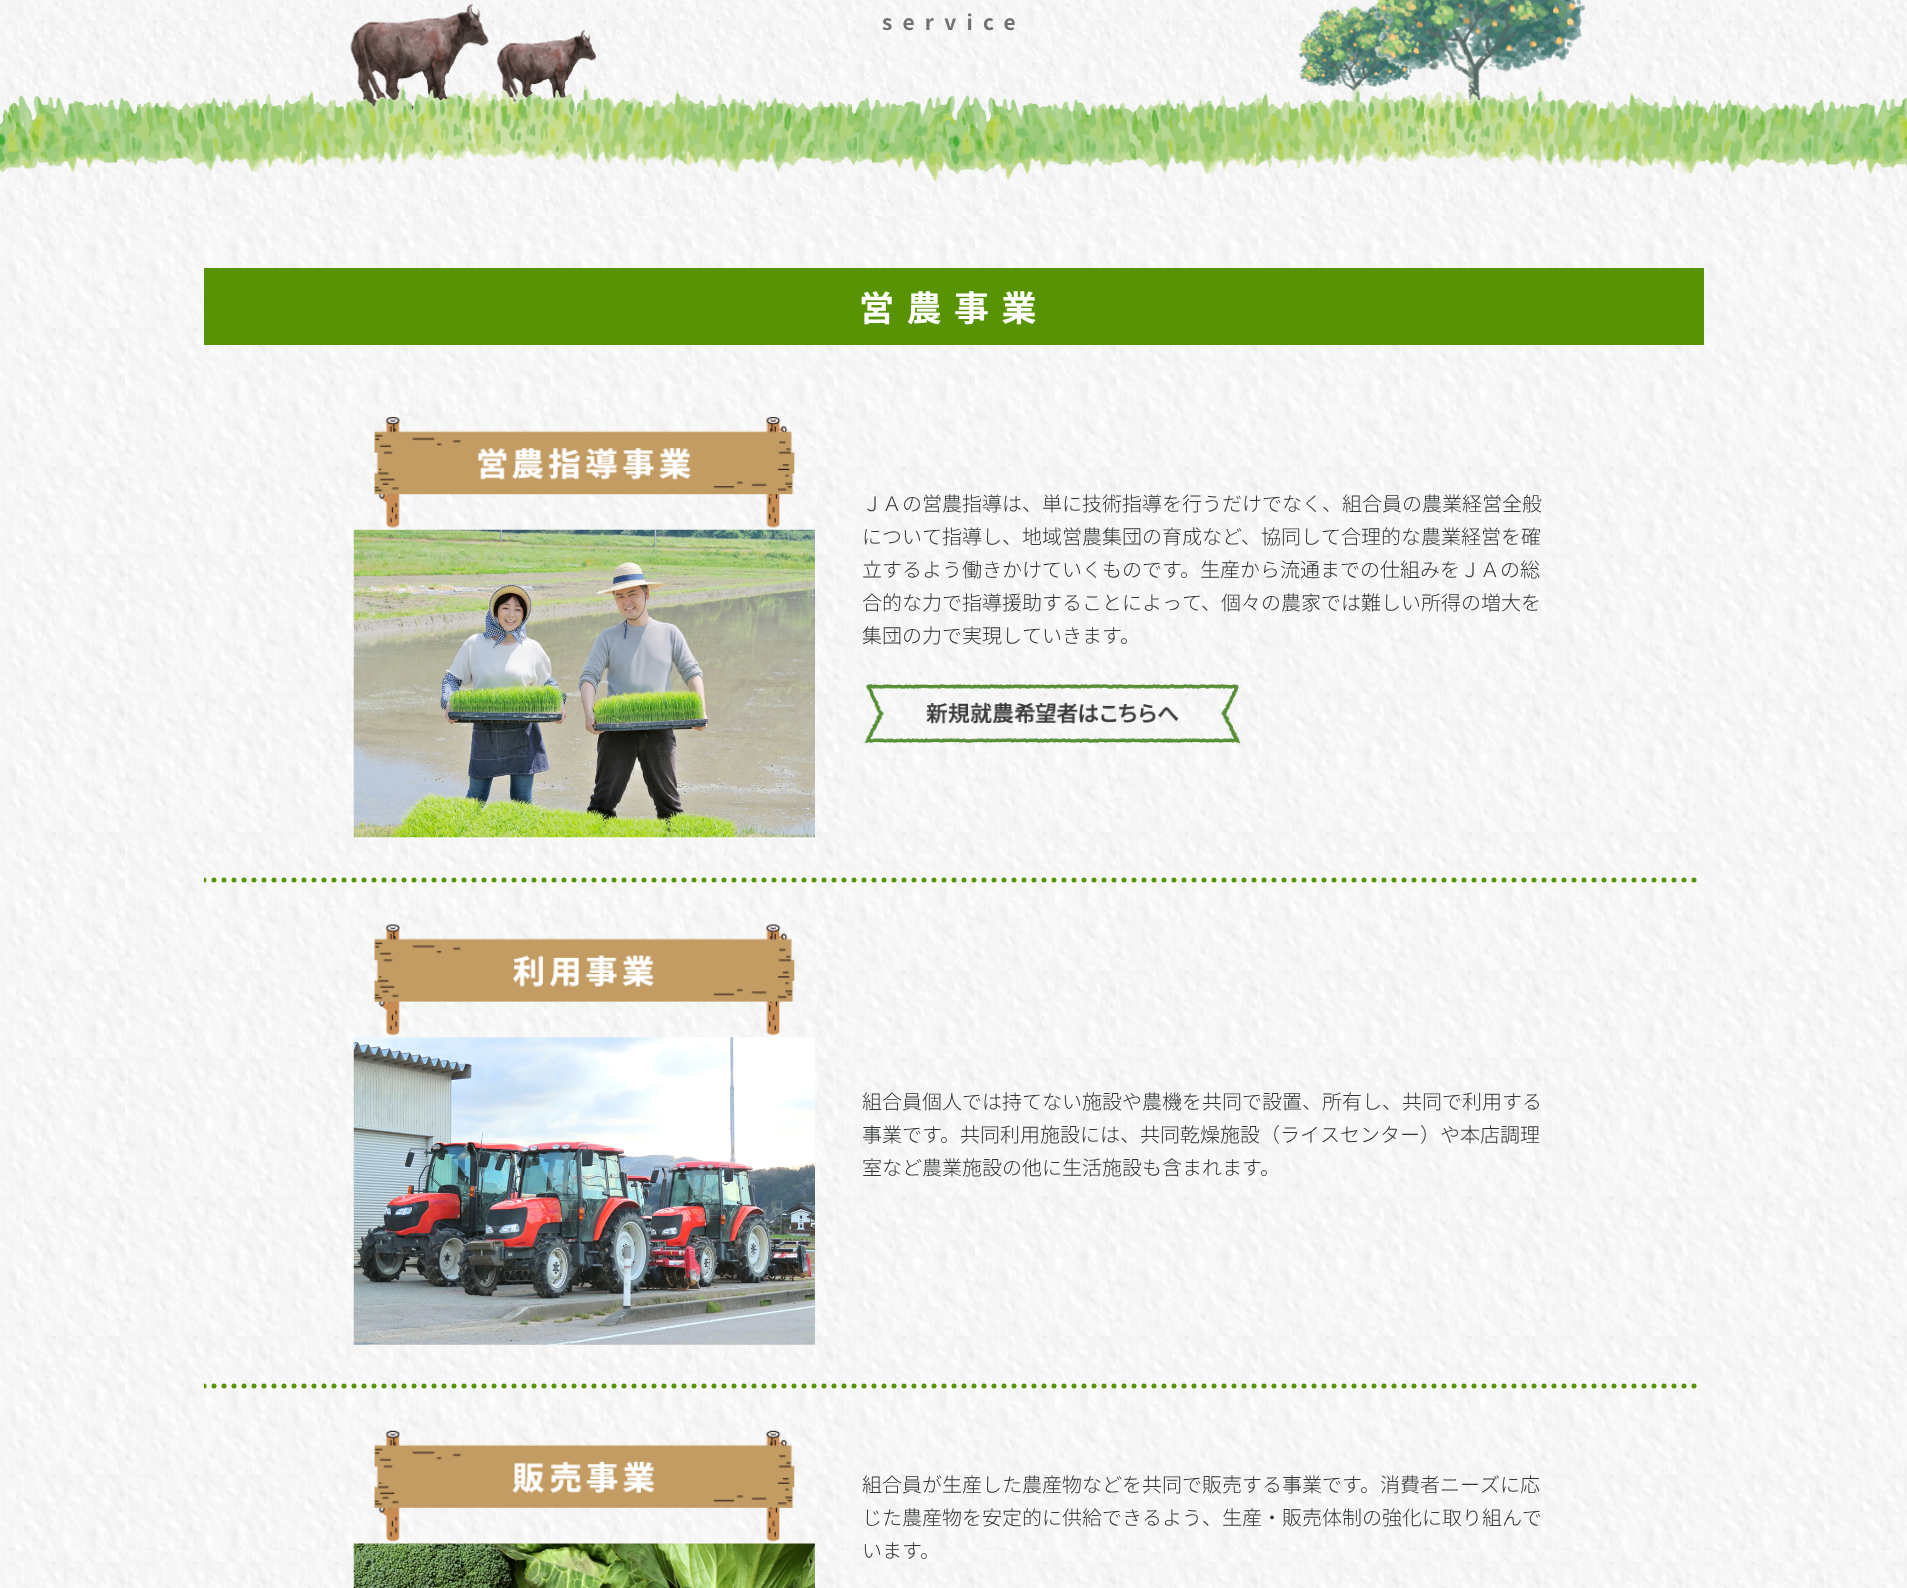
(async () => {
    const canvas = document.querySelector("canvas");
    canvas.width = 1907;
    canvas.height = 1588;
    const context = canvas.getContext("2d");
    context.miterLimit = 4;
    context.fontKerning = "normal";
    function write(s, x, y, font, color) {
        context.font = font;
        context.fillStyle = color;
        context.fillText(s, x, y);
    }
    function block(x, y, w, h, color) {
        context.fillStyle = color;
        context.fillRect(x, y, w, h);
    }
    async function photo(src, x, y, w, h) {
        const img = new Image();
        img.src = src;
        await img.decode();
        context.drawImage(img, x, y, w, h);
    }

    block(0, 0, 1907, 1588, "rgb(255, 255, 255)");
    await photo("media/1.png", 0, 0, 1907, 1588);
    await photo("media/2.png", 0, 0, 1907, 216);
    context.letterSpacing = "10.25px";
    write("service", 882, 30, "bold 20.75px Noto Sans JP", "rgb(114, 113, 113)");
    block(204, 268, 1500, 77, "rgb(87, 147, 4)");
    context.letterSpacing = "12.5px";
    write("営農事業", 859, 321, "bold 35px Noto Sans JP", "rgb(255, 255, 255)");
    await photo("media/3.png", 374, 417, 421, 111);
    await photo("media/4.png", 353, 529, 462, 309);
    context.letterSpacing = "0px";
    write("ＪＡの営農指導は、単に技術指導を行うだけでなく、組合員の農業経営全般", 862, 511, "300 20px Noto Sans JP", "rgb(47, 51, 53)");
    write("について指導し、地域営農集団の育成など、協同して合理的な農業経営を確", 862, 544, "300 20px Noto Sans JP", "rgb(47, 51, 53)");
    write("立するよう働きかけていくものです。生産から流通までの仕組みをＪＡの総", 862, 577, "300 20px Noto Sans JP", "rgb(47, 51, 53)");
    write("合的な力で指導援助することによって、個々の農家では難しい所得の増大を", 862, 610, "300 20px Noto Sans JP", "rgb(47, 51, 53)");
    write("集団の力で実現していきます。", 862, 643, "300 20px Noto Sans JP", "rgb(47, 51, 53)");
    await photo("media/5.png", 864, 684, 377, 60);
    context.save();
    context.beginPath();
    context.rect(204, 0, 1500, 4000);
    context.clip();
    context.beginPath();
    context.moveTo(204, 880);
    context.lineTo(1704, 880);
    context.strokeStyle = "rgb(87, 147, 4)";
    context.lineWidth = 5;
    context.lineCap = "round";
    context.setLineDash([0, 10]);
    context.stroke();
    context.restore();
    await photo("media/6.png", 374, 924, 421, 112);
    await photo("media/7.png", 353, 1037, 462, 308);
    write("組合員個人では持てない施設や農機を共同で設置、所有し、共同で利用する", 862, 1109, "300 20px Noto Sans JP", "rgb(47, 51, 53)");
    write("事業です。共同利用施設には、共同乾燥施設（ライスセンター）や本店調理", 862, 1142, "300 20px Noto Sans JP", "rgb(47, 51, 53)");
    write("室など農業施設の他に生活施設も含まれます。", 862, 1175, "300 20px Noto Sans JP", "rgb(47, 51, 53)");
    context.save();
    context.beginPath();
    context.rect(204, 0, 1500, 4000);
    context.clip();
    context.beginPath();
    context.moveTo(204, 1386);
    context.lineTo(1704, 1386);
    context.strokeStyle = "rgb(87, 147, 4)";
    context.lineWidth = 5;
    context.lineCap = "round";
    context.setLineDash([0, 10]);
    context.stroke();
    context.restore();
    await photo("media/8.png", 374, 1430, 421, 112);
    await photo("media/9.png", 353, 1543, 462, 45);
    write("組合員が生産した農産物などを共同で販売する事業です。消費者ニーズに応", 862, 1492, "300 20px Noto Sans JP", "rgb(47, 51, 53)");
    write("じた農産物を安定的に供給できるよう、生産・販売体制の強化に取り組んで", 862, 1525, "300 20px Noto Sans JP", "rgb(47, 51, 53)");
    write("います。", 862, 1558, "300 20px Noto Sans JP", "rgb(47, 51, 53)");
})();
